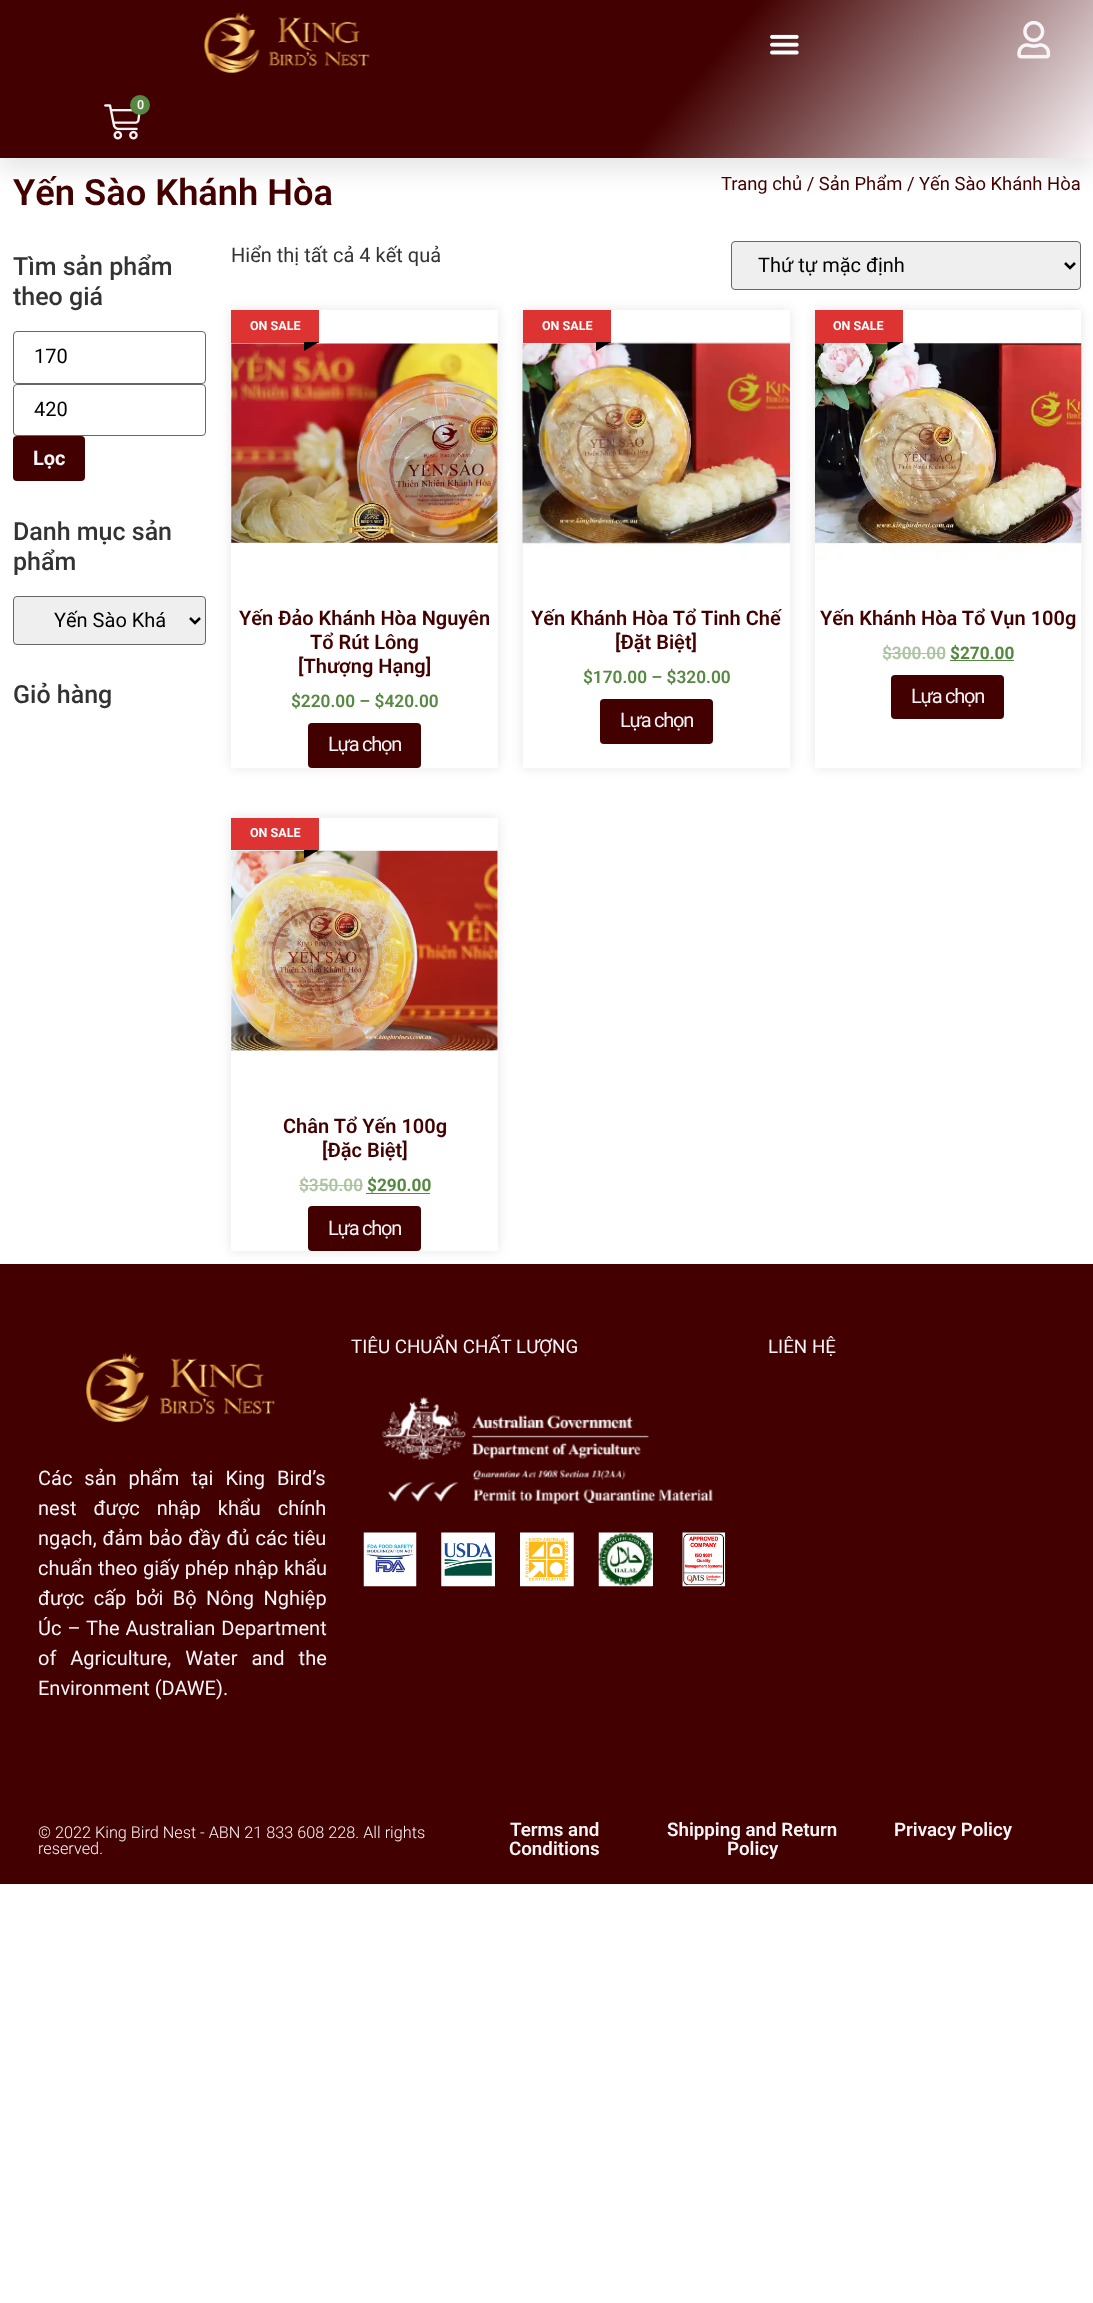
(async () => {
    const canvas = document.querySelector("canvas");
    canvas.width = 1093;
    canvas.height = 2303;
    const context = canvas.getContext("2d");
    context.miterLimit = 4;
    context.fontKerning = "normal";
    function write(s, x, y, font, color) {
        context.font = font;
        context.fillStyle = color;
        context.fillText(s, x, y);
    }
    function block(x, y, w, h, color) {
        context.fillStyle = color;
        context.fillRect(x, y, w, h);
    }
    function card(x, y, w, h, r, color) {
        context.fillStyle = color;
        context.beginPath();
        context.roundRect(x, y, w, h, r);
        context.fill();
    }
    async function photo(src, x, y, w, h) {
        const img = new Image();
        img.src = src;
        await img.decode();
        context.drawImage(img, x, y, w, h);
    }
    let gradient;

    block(0, 0, 1093, 2303, "rgb(255, 255, 255)");
    context.fillStyle = "rgba(0, 0, 0, 0.1)";
    context.filter = "blur(12.5px)";
    context.beginPath();
    context.rect(0, 13, 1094, 157);
    context.fill();
    context.filter = "none";
    gradient = context.createLinearGradient(187, -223, 907, 381);
    gradient.addColorStop(0.62, "rgb(66, 0, 0)");
    gradient.addColorStop(1, "rgb(249, 244, 247)");
    context.fillStyle = gradient;
    context.fillRect(0, 0, 1093, 158);
    await photo("media/1.png", 204, 12, 166, 61);
    await photo("media/2.png", 770, 34, 29, 21);
    await photo("media/3.png", 1017, 21, 34, 38);
    await photo("media/4.png", 104, 104, 37, 36);
    context.fillStyle = "rgb(86, 136, 65)";
    context.beginPath();
    context.arc(140, 105, 10, 0, Math.PI * 2);
    context.fill();
    write("0", 137, 109, "600 12.5px Roboto", "rgb(249, 244, 247)");
    write("Yến Sào Khánh Hòa", 13, 205, "600 36.25px Roboto", "rgb(66, 0, 0)");
    write("Trang chủ / Sản Phẩm / Yến Sào Khánh Hòa", 721, 190, "18.4px Roboto", "rgb(66, 0, 0)");
    write("Tìm sản phẩm", 13, 275, "500 25px Roboto", "rgb(51, 51, 51)");
    write("theo giá", 13, 305, "500 25px Roboto", "rgb(51, 51, 51)");
    context.beginPath();
    context.roundRect(13.5, 331.5, 192, 52, 3.5);
    context.strokeStyle = "rgb(102, 102, 102)";
    context.stroke();
    write("170", 34, 363, "20px Roboto", "rgb(0, 0, 0)");
    context.beginPath();
    context.roundRect(13.5, 384.5, 192, 51, 3.5);
    context.stroke();
    write("420", 34, 416, "20px Roboto", "rgb(0, 0, 0)");
    card(13, 436, 72, 45, 4, "rgb(66, 0, 0)");
    write("Lọc", 33, 465, "bold 20px Roboto", "rgb(249, 244, 247)");
    write("Danh mục sản", 13, 540, "500 25px Roboto", "rgb(51, 51, 51)");
    write("phẩm", 13, 570, "500 25px Roboto", "rgb(51, 51, 51)");
    context.fillStyle = "rgb(239, 239, 239)";
    context.beginPath();
    context.roundRect(13.5, 596.5, 192, 48, 3.5);
    context.fill();
    context.stroke();
    context.beginPath();
    context.moveTo(190, 618);
    context.lineTo(195, 623);
    context.lineTo(200, 618);
    context.strokeStyle = "rgb(0, 0, 0)";
    context.lineWidth = 2.5;
    context.stroke();
    write("Yến Sào Khá", 54, 627, "20px Roboto", "rgb(0, 0, 0)");
    write("Giỏ hàng", 13, 703, "500 25px Roboto", "rgb(51, 51, 51)");
    write("Hiển thị tất cả 4 kết quả", 231, 262, "20px Roboto", "rgb(51, 51, 51)");
    context.fillStyle = "rgb(239, 239, 239)";
    context.beginPath();
    context.roundRect(731.5, 241.5, 349, 48, 3.5);
    context.fill();
    context.strokeStyle = "rgb(102, 102, 102)";
    context.lineWidth = 1;
    context.stroke();
    context.beginPath();
    context.moveTo(1065, 263);
    context.lineTo(1070, 268);
    context.lineTo(1075, 263);
    context.strokeStyle = "rgb(0, 0, 0)";
    context.lineWidth = 2.5;
    context.stroke();
    write("Thứ tự mặc định", 758, 272, "20px Roboto", "rgb(0, 0, 0)");
    context.save();
    context.beginPath();
    context.moveTo(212, 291);
    context.lineTo(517, 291);
    context.lineTo(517, 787);
    context.lineTo(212, 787);
    context.closePath();
    context.moveTo(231, 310);
    context.lineTo(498, 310);
    context.lineTo(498, 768);
    context.lineTo(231, 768);
    context.closePath();
    context.clip("evenodd");
    context.fillStyle = "rgba(0, 0, 0, 0.1)";
    context.filter = "blur(6px)";
    context.beginPath();
    context.rect(231, 310, 267, 458);
    context.fill();
    context.filter = "none";
    context.restore();
    await photo("media/5.png", 231, 342, 267, 202);
    block(231, 310, 88, 33, "rgb(221, 51, 51)");
    write("ON SALE", 250, 330, "bold 12.5px Roboto", "rgb(255, 255, 255)");
    context.fillStyle = "rgb(0, 0, 0)";
    context.beginPath();
    context.moveTo(304, 342);
    context.lineTo(304, 351);
    context.lineTo(319, 342);
    context.closePath();
    context.fill();
    write("Yến Đảo Khánh Hòa Nguyên", 239, 625, "600 20px Roboto", "rgb(66, 0, 0)");
    write("Tổ Rút Lông", 310, 649, "600 20px Roboto", "rgb(66, 0, 0)");
    write("[Thượng Hạng]", 298, 673, "600 20px Roboto", "rgb(66, 0, 0)");
    write("$220.00 – $420.00", 291, 707, "600 17.25px Roboto", "rgb(86, 136, 65)");
    card(308, 723, 113, 45, 4, "rgb(66, 0, 0)");
    context.letterSpacing = "-1.25px";
    write("Lựa chọn", 328, 751, "20px Roboto", "rgb(249, 244, 247)");
    context.save();
    context.beginPath();
    context.moveTo(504, 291);
    context.lineTo(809, 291);
    context.lineTo(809, 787);
    context.lineTo(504, 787);
    context.closePath();
    context.moveTo(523, 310);
    context.lineTo(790, 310);
    context.lineTo(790, 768);
    context.lineTo(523, 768);
    context.closePath();
    context.clip("evenodd");
    context.fillStyle = "rgba(0, 0, 0, 0.1)";
    context.filter = "blur(6px)";
    context.beginPath();
    context.rect(523, 310, 267, 458);
    context.fill();
    context.filter = "none";
    context.restore();
    await photo("media/6.png", 522, 340, 268, 207);
    block(523, 310, 88, 33, "rgb(221, 51, 51)");
    context.letterSpacing = "0px";
    write("ON SALE", 542, 330, "bold 12.5px Roboto", "rgb(255, 255, 255)");
    context.fillStyle = "rgb(0, 0, 0)";
    context.beginPath();
    context.moveTo(596, 342);
    context.lineTo(596, 351);
    context.lineTo(611, 342);
    context.closePath();
    context.fill();
    write("Yến Khánh Hòa Tổ Tinh Chế", 531, 625, "600 20px Roboto", "rgb(66, 0, 0)");
    write("[Đặt Biệt]", 615, 649, "600 20px Roboto", "rgb(66, 0, 0)");
    write("$170.00 – $320.00", 583, 683, "600 17.25px Roboto", "rgb(86, 136, 65)");
    card(600, 699, 113, 45, 4, "rgb(66, 0, 0)");
    context.letterSpacing = "-1.25px";
    write("Lựa chọn", 620, 727, "20px Roboto", "rgb(249, 244, 247)");
    context.save();
    context.beginPath();
    context.moveTo(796, 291);
    context.lineTo(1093, 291);
    context.lineTo(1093, 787);
    context.lineTo(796, 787);
    context.closePath();
    context.moveTo(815, 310);
    context.lineTo(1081, 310);
    context.lineTo(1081, 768);
    context.lineTo(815, 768);
    context.closePath();
    context.clip("evenodd");
    context.fillStyle = "rgba(0, 0, 0, 0.1)";
    context.filter = "blur(6px)";
    context.beginPath();
    context.rect(815, 310, 266, 458);
    context.fill();
    context.filter = "none";
    context.restore();
    await photo("media/7.png", 815, 339, 267, 220);
    block(815, 310, 88, 33, "rgb(221, 51, 51)");
    context.letterSpacing = "0px";
    write("ON SALE", 833, 330, "bold 12.5px Roboto", "rgb(255, 255, 255)");
    context.fillStyle = "rgb(0, 0, 0)";
    context.beginPath();
    context.moveTo(887.5, 342);
    context.lineTo(887.5, 351);
    context.lineTo(902.5, 342);
    context.closePath();
    context.fill();
    write("Yến Khánh Hòa Tổ Vụn 100g", 820, 625, "600 20px Roboto", "rgb(66, 0, 0)");
    write("$300.00", 882, 659, "600 17.25px Roboto", "rgb(171, 196, 160)");
    block(883, 653, 62, 1, "rgb(171, 196, 160)");
    block(950, 660, 64, 1, "rgb(86, 136, 65)");
    write("$270.00", 950, 659, "bold 17.25px Roboto", "rgb(86, 136, 65)");
    card(891, 675, 113, 44, 4, "rgb(66, 0, 0)");
    context.letterSpacing = "-1.25px";
    write("Lựa chọn", 911, 703, "20px Roboto", "rgb(249, 244, 247)");
    context.save();
    context.beginPath();
    context.moveTo(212, 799);
    context.lineTo(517, 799);
    context.lineTo(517, 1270);
    context.lineTo(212, 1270);
    context.closePath();
    context.moveTo(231, 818);
    context.lineTo(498, 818);
    context.lineTo(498, 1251);
    context.lineTo(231, 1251);
    context.closePath();
    context.clip("evenodd");
    context.fillStyle = "rgba(0, 0, 0, 0.1)";
    context.filter = "blur(6px)";
    context.beginPath();
    context.rect(231, 818, 267, 433);
    context.fill();
    context.filter = "none";
    context.restore();
    await photo("media/8.png", 231, 849, 267, 204);
    block(231, 818, 88, 32, "rgb(221, 51, 51)");
    context.letterSpacing = "0px";
    write("ON SALE", 250, 837, "bold 12.5px Roboto", "rgb(255, 255, 255)");
    context.fillStyle = "rgb(0, 0, 0)";
    context.beginPath();
    context.moveTo(304, 850);
    context.lineTo(304, 858.5);
    context.lineTo(319, 850);
    context.closePath();
    context.fill();
    write("Chân Tổ Yến 100g", 283, 1133, "600 20px Roboto", "rgb(66, 0, 0)");
    write("[Đặc Biệt]", 322, 1157, "600 20px Roboto", "rgb(66, 0, 0)");
    write("$350.00", 299, 1191, "600 17.25px Roboto", "rgb(171, 196, 160)");
    block(299, 1185, 64, 1, "rgb(171, 196, 160)");
    write("$290.00", 367, 1191, "bold 17.25px Roboto", "rgb(86, 136, 65)");
    block(366, 1193, 64, 1, "rgb(86, 136, 65)");
    card(308, 1206, 113, 45, 4, "rgb(66, 0, 0)");
    context.letterSpacing = "-1.25px";
    write("Lựa chọn", 328, 1235, "20px Roboto", "rgb(249, 244, 247)");
    block(0, 1264, 1093, 620, "rgb(66, 0, 0)");
    context.letterSpacing = "0px";
    write("TIÊU CHUẨN CHẤT LƯỢNG", 351, 1353, "18.75px Roboto", "rgb(249, 244, 247)");
    await photo("media/9.png", 382, 1397, 331, 108);
    await photo("media/10.png", 363, 1532, 54, 55);
    await photo("media/11.png", 441, 1532, 54, 55);
    await photo("media/12.png", 520, 1532, 54, 55);
    block(652, 1533, 1, 53, "rgb(255, 255, 255)");
    await photo("media/13.png", 598, 1532, 55, 55);
    await photo("media/14.png", 682, 1532, 44, 55);
    write("LIÊN HỆ", 768, 1353, "18.75px Roboto", "rgb(249, 244, 247)");
    await photo("media/15.png", 86, 1352, 189, 70);
    context.wordSpacing = "7px";
    write("Các sản phẩm tại King Bird’s", 38, 1485, "20px Roboto", "rgb(249, 244, 247)");
    context.wordSpacing = "12px";
    write("nest được nhập khẩu chính", 38, 1515, "20px Roboto", "rgb(249, 244, 247)");
    context.wordSpacing = "1px";
    write("ngạch, đảm bảo đầy đủ các tiêu", 38, 1545, "20px Roboto", "rgb(249, 244, 247)");
    context.wordSpacing = "0.5px";
    write("chuẩn theo giấy phép nhập khẩu", 38, 1575, "20px Roboto", "rgb(249, 244, 247)");
    context.wordSpacing = "4.5px";
    write("được cấp bởi Bộ Nông Nghiệp", 38, 1605, "20px Roboto", "rgb(249, 244, 247)");
    context.wordSpacing = "1px";
    write("Úc – The Australian Department", 38, 1635, "20px Roboto", "rgb(249, 244, 247)");
    context.wordSpacing = "9px";
    write("of Agriculture, Water and the", 38, 1665, "20px Roboto", "rgb(249, 244, 247)");
    context.wordSpacing = "0px";
    write("Environment (DAWE).", 38, 1695, "20px Roboto", "rgb(249, 244, 247)");
    write("© 2022 King Bird Nest - ABN 21 833 608 228. All rights", 38, 1838, "300 16.25px Roboto", "rgb(249, 244, 247)");
    write("reserved.", 38, 1854, "300 16.25px Roboto", "rgb(249, 244, 247)");
    write("Terms and", 510, 1836, "600 18.75px Roboto", "rgb(249, 244, 247)");
    write("Conditions", 509, 1855, "600 18.75px Roboto", "rgb(249, 244, 247)");
    write("Shipping and Return", 667, 1836, "600 18.75px Roboto", "rgb(249, 244, 247)");
    write("Policy", 727, 1855, "600 18.75px Roboto", "rgb(249, 244, 247)");
    write("Privacy Policy", 894, 1836, "600 18.75px Roboto", "rgb(249, 244, 247)");
})();
